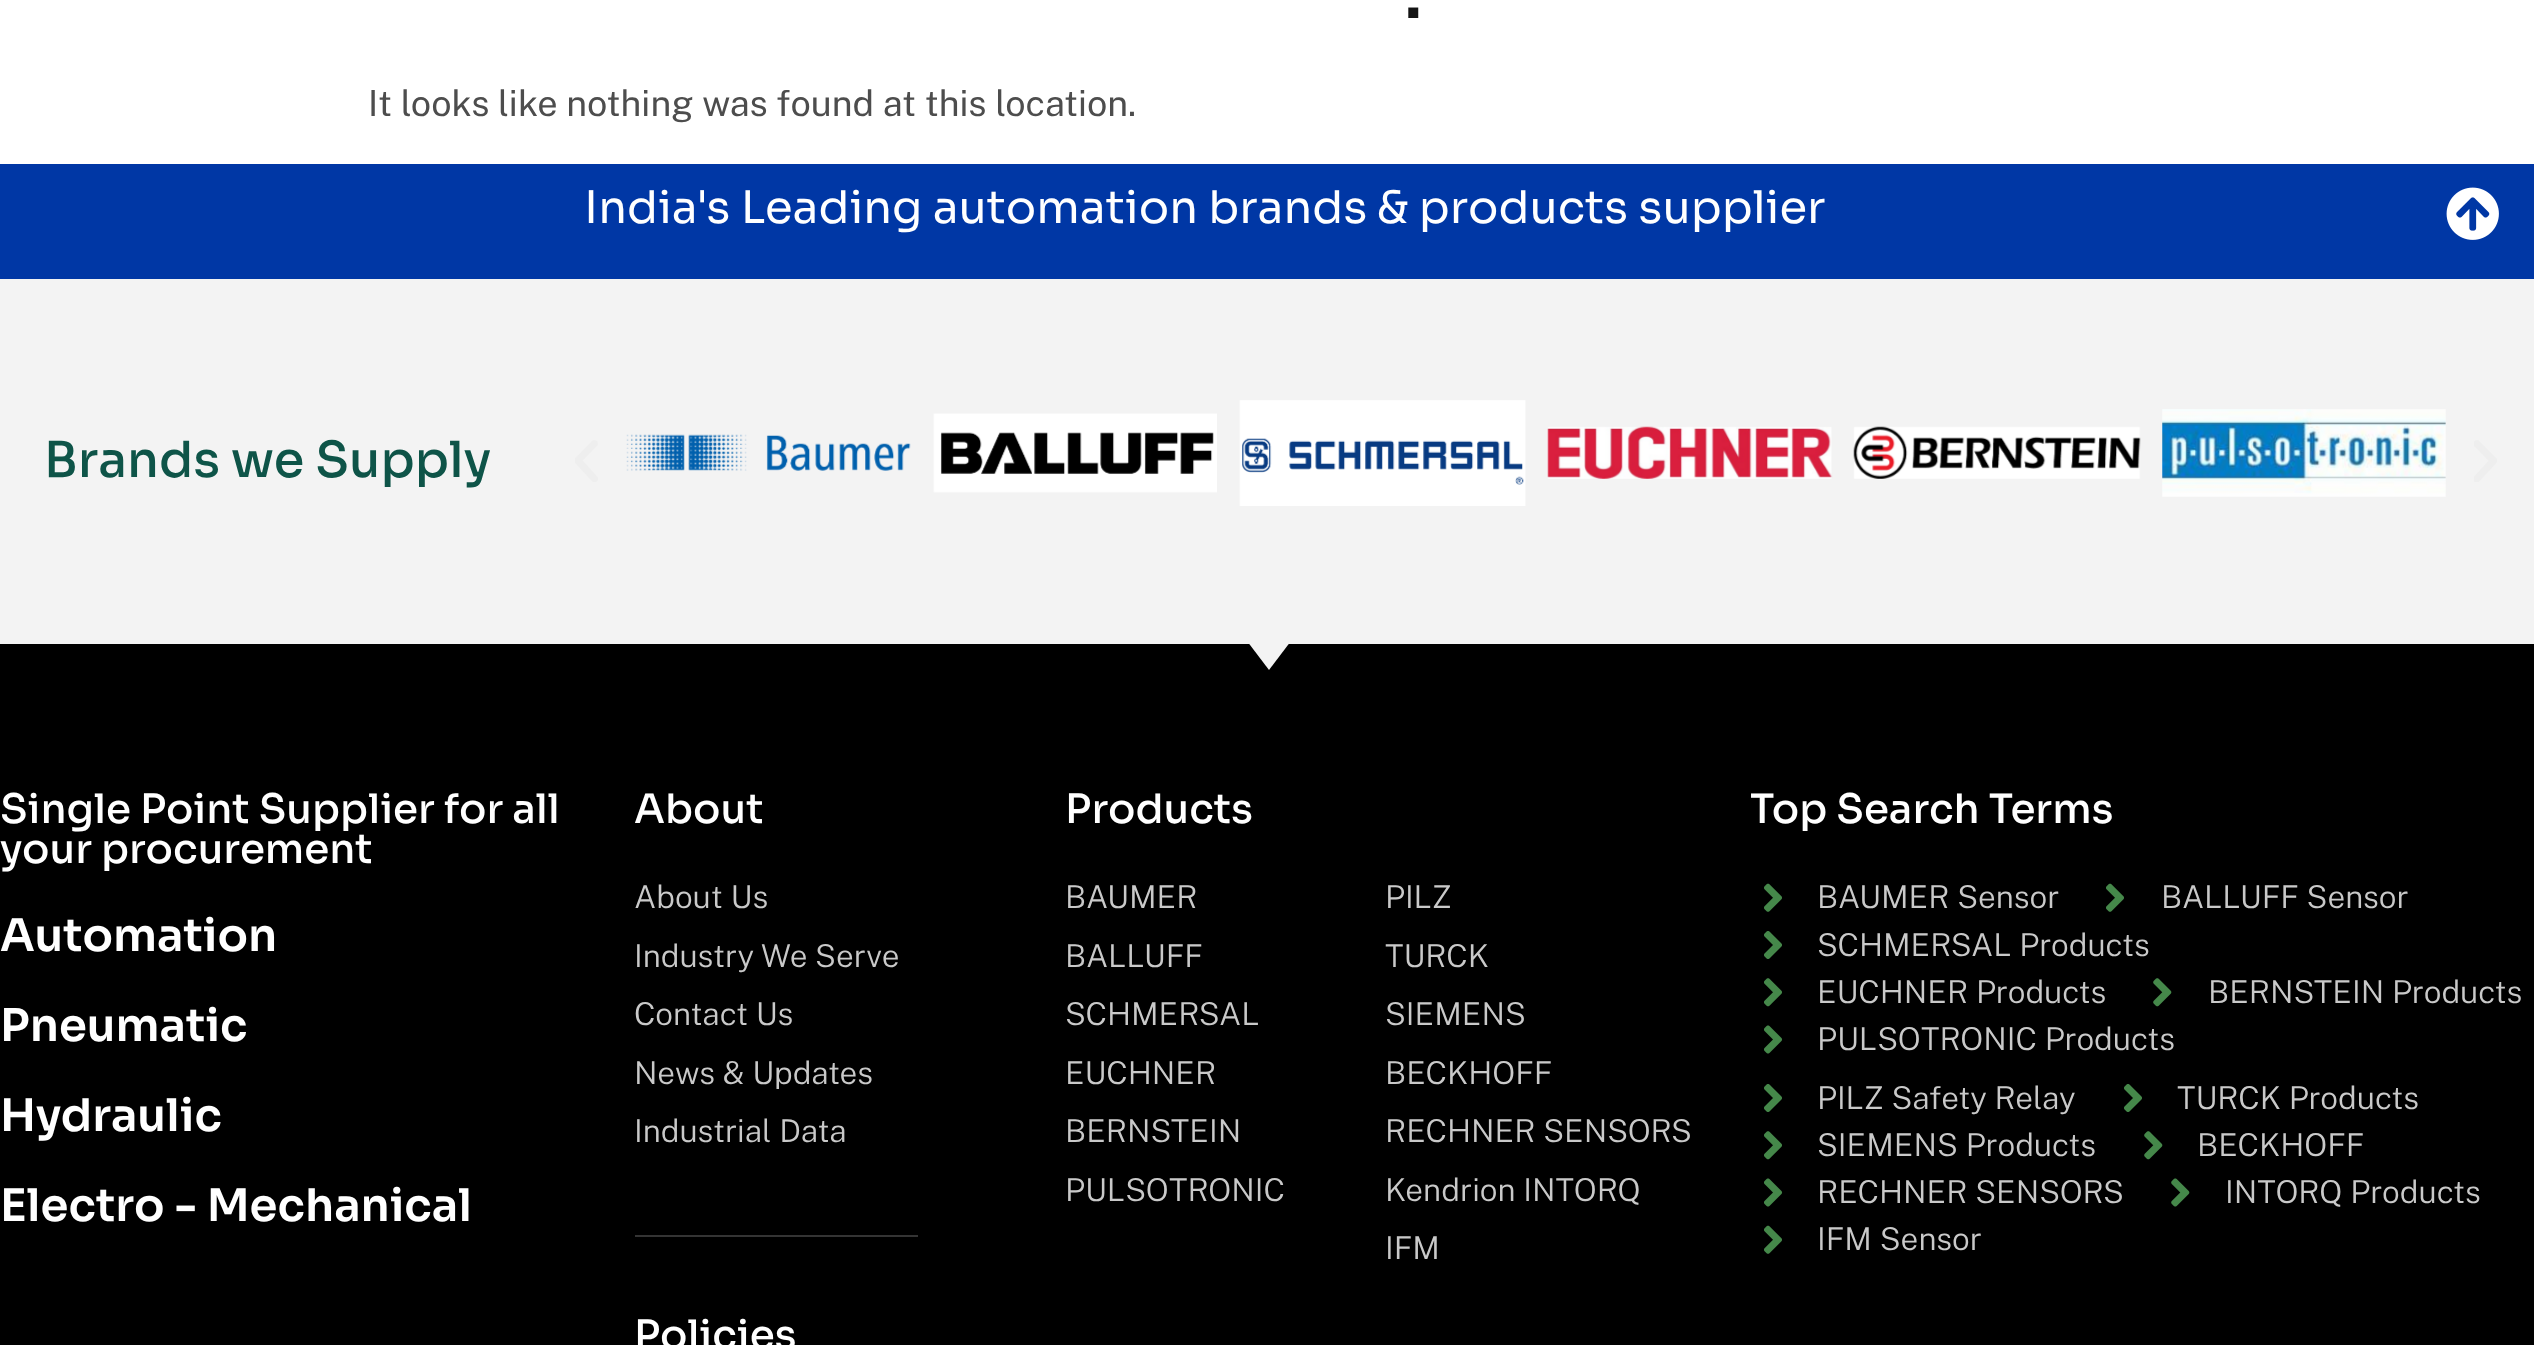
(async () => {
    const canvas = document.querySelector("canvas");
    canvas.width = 2534;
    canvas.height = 1345;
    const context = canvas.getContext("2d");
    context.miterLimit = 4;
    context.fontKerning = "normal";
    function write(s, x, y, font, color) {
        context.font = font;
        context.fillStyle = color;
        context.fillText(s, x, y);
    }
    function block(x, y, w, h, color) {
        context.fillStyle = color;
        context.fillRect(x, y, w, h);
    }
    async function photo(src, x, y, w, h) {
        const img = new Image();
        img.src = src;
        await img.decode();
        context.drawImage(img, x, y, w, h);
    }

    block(0, 0, 2534, 1345, "rgb(255, 255, 255)");
    write(".", 1402, 18, "86px Sora", "rgb(20, 20, 20)");
    write("It looks like nothing was found at this location.", 368, 116, "36px Public Sans", "rgb(77, 77, 77)");
    block(0, 164, 2534, 115, "rgb(0, 55, 165)");
    write("India's Leading automation brands & products supplier", 584, 223, "45px Sora", "rgb(255, 255, 255)");
    await photo("media/1.png", 2446, 187, 53, 53);
    block(0, 279, 2534, 365, "rgb(243, 243, 243)");
    write("Brands we Supply", 44, 477, "500 49.5px Sora", "rgb(14, 84, 72)");
    await photo("media/2.png", 575, 440, 23, 42);
    await photo("media/3.png", 626, 434, 285, 37);
    await photo("media/4.png", 933, 413, 284, 80);
    await photo("media/5.png", 1239, 400, 287, 106);
    await photo("media/6.png", 1547, 426, 286, 53);
    await photo("media/7.png", 1853, 426, 288, 53);
    await photo("media/8.png", 2162, 409, 284, 88);
    await photo("media/9.png", 2474, 440, 23, 42);
    block(0, 644, 2534, 701, "rgb(0, 0, 0)");
    context.fillStyle = "rgb(243, 243, 243)";
    context.beginPath();
    context.moveTo(1269, 670);
    context.lineTo(1247, 641);
    context.lineTo(1291, 641);
    context.closePath();
    context.fill();
    write("Single Point Supplier for all", 0, 823, "500 40.5px Sora", "rgb(255, 255, 255)");
    write("your procurement", 0, 863, "500 40.5px Sora", "rgb(255, 255, 255)");
    write("Automation", 0, 951, "600 45px Sora", "rgb(255, 255, 255)");
    write("Pneumatic", 0, 1041, "600 45px Sora", "rgb(255, 255, 255)");
    write("Hydraulic", 0, 1131, "600 45px Sora", "rgb(255, 255, 255)");
    write("Electro - Mechanical", 0, 1221, "600 45px Sora", "rgb(255, 255, 255)");
    write("About", 634, 823, "500 40.5px Sora", "rgb(255, 255, 255)");
    write("About Us", 634, 908, "300 31.5px Public Sans", "rgb(201, 201, 201)");
    write("Industry We Serve", 634, 967, "300 31.5px Public Sans", "rgb(201, 201, 201)");
    write("Contact Us", 634, 1025, "300 31.5px Public Sans", "rgb(201, 201, 201)");
    write("News & Updates", 634, 1084, "300 31.5px Public Sans", "rgb(201, 201, 201)");
    write("Industrial Data", 634, 1142, "300 31.5px Public Sans", "rgb(201, 201, 201)");
    block(635, 1235, 283, 2, "rgb(52, 52, 52)");
    write("Policies", 634, 1349, "500 40.5px Sora", "rgb(255, 255, 255)");
    write("Products", 1065, 823, "500 40.5px Sora", "rgb(255, 255, 255)");
    write("BAUMER", 1065, 908, "300 31.5px Public Sans", "rgb(201, 201, 201)");
    write("BALLUFF", 1065, 967, "300 31.5px Public Sans", "rgb(201, 201, 201)");
    write("SCHMERSAL", 1065, 1025, "300 31.5px Public Sans", "rgb(201, 201, 201)");
    write("EUCHNER", 1065, 1084, "300 31.5px Public Sans", "rgb(201, 201, 201)");
    write("BERNSTEIN", 1065, 1142, "300 31.5px Public Sans", "rgb(201, 201, 201)");
    write("PULSOTRONIC", 1065, 1201, "300 31.5px Public Sans", "rgb(201, 201, 201)");
    write("PILZ", 1385, 908, "300 31.5px Public Sans", "rgb(201, 201, 201)");
    write("TURCK", 1385, 967, "300 31.5px Public Sans", "rgb(201, 201, 201)");
    write("SIEMENS", 1385, 1025, "300 31.5px Public Sans", "rgb(201, 201, 201)");
    write("BECKHOFF", 1385, 1084, "300 31.5px Public Sans", "rgb(201, 201, 201)");
    write("RECHNER SENSORS", 1385, 1142, "300 31.5px Public Sans", "rgb(201, 201, 201)");
    write("Kendrion INTORQ", 1385, 1201, "300 31.5px Public Sans", "rgb(201, 201, 201)");
    write("IFM", 1385, 1259, "300 31.5px Public Sans", "rgb(201, 201, 201)");
    write("Top Search Terms", 1750, 823, "500 40.5px Sora", "rgb(255, 255, 255)");
    await photo("media/10.png", 1764, 883, 18, 29);
    write("BAUMER Sensor", 1817, 908, "300 31.5px Public Sans", "rgb(201, 201, 201)");
    await photo("media/10.png", 2106, 883, 18, 29);
    write("BALLUFF Sensor", 2161, 908, "300 31.5px Public Sans", "rgb(201, 201, 201)");
    await photo("media/11.png", 1764, 931, 18, 28);
    write("SCHMERSAL Products", 1817, 956, "300 31.5px Public Sans", "rgb(201, 201, 201)");
    await photo("media/12.png", 1764, 978, 18, 29);
    write("EUCHNER Products", 1817, 1003, "300 31.5px Public Sans", "rgb(201, 201, 201)");
    await photo("media/13.png", 2153, 978, 19, 29);
    write("BERNSTEIN Products", 2208, 1003, "300 31.5px Public Sans", "rgb(201, 201, 201)");
    await photo("media/14.png", 1764, 1025, 19, 29);
    write("PULSOTRONIC Products", 1817, 1050, "300 31.5px Public Sans", "rgb(201, 201, 201)");
    await photo("media/11.png", 1764, 1084, 18, 28);
    write("PILZ Safety Relay", 1817, 1109, "300 31.5px Public Sans", "rgb(201, 201, 201)");
    await photo("media/11.png", 2124, 1084, 18, 28);
    write("TURCK Products", 2177, 1109, "300 31.5px Public Sans", "rgb(201, 201, 201)");
    await photo("media/12.png", 1764, 1131, 18, 29);
    write("SIEMENS Products", 1817, 1156, "300 31.5px Public Sans", "rgb(201, 201, 201)");
    await photo("media/13.png", 2144, 1131, 19, 29);
    write("BECKHOFF", 2197, 1156, "300 31.5px Public Sans", "rgb(201, 201, 201)");
    await photo("media/14.png", 1764, 1178, 19, 29);
    write("RECHNER SENSORS", 1817, 1203, "300 31.5px Public Sans", "rgb(201, 201, 201)");
    await photo("media/15.png", 2171, 1178, 19, 29);
    write("INTORQ Products", 2225, 1203, "300 31.5px Public Sans", "rgb(201, 201, 201)");
    await photo("media/10.png", 1764, 1225, 18, 29);
    write("IFM Sensor", 1817, 1250, "300 31.5px Public Sans", "rgb(201, 201, 201)");
})();
